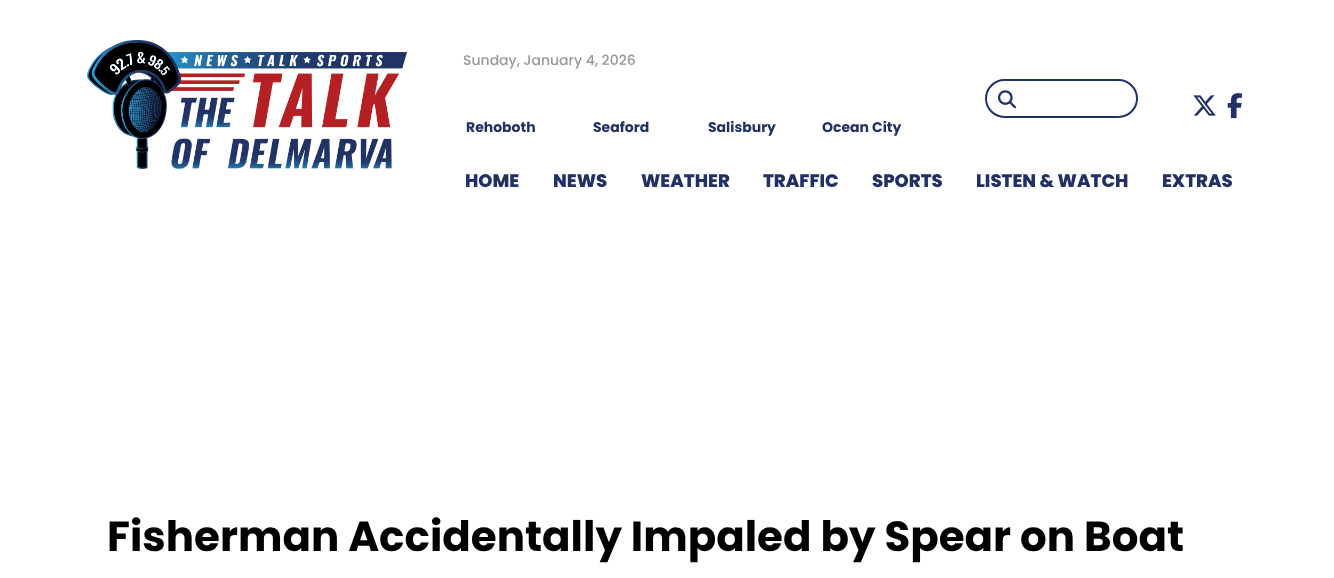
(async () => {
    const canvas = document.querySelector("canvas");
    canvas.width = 1334;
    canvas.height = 578;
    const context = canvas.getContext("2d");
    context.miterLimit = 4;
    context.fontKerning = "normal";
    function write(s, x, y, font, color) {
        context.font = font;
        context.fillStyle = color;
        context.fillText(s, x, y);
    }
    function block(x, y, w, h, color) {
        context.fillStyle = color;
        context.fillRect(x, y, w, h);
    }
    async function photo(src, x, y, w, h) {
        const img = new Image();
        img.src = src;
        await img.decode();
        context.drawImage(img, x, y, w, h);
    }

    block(0, 0, 1334, 578, "rgb(255, 255, 255)");
    await photo("media/1.png", 87, 40, 320, 129);
    write("Sunday, January 4, 2026", 463, 65, "500 14px Poppins", "rgb(152, 152, 152)");
    write("Rehoboth", 466, 132, "bold 14px Poppins", "rgb(34, 49, 101)");
    write("Seaford", 593, 132, "bold 14px Poppins", "rgb(34, 49, 101)");
    write("Salisbury", 708, 132, "bold 14px Poppins", "rgb(34, 49, 101)");
    write("Ocean City", 822, 132, "bold 14px Poppins", "rgb(34, 49, 101)");
    context.beginPath();
    context.roundRect(986, 80, 151, 37, 18.5);
    context.strokeStyle = "rgb(34, 49, 101)";
    context.lineWidth = 2;
    context.stroke();
    await photo("media/2.png", 998, 90, 18, 19);
    await photo("media/3.png", 1193, 95, 23, 21);
    await photo("media/4.png", 1227, 93, 15, 26);
    write("HOME", 465, 187, "800 18px Poppins", "rgb(34, 49, 101)");
    write("NEWS", 553, 187, "800 18px Poppins", "rgb(34, 49, 101)");
    write("WEATHER", 641, 187, "800 18px Poppins", "rgb(34, 49, 101)");
    write("TRAFFIC", 763, 187, "800 18px Poppins", "rgb(34, 49, 101)");
    write("SPORTS", 872, 187, "800 18px Poppins", "rgb(34, 49, 101)");
    write("LISTEN & WATCH", 976, 187, "800 18px Poppins", "rgb(34, 49, 101)");
    write("EXTRAS", 1162, 187, "800 18px Poppins", "rgb(34, 49, 101)");
    write("Fisherman Accidentally Impaled by Spear on Boat", 107, 551, "bold 42px Poppins", "rgb(0, 0, 0)");
})();
